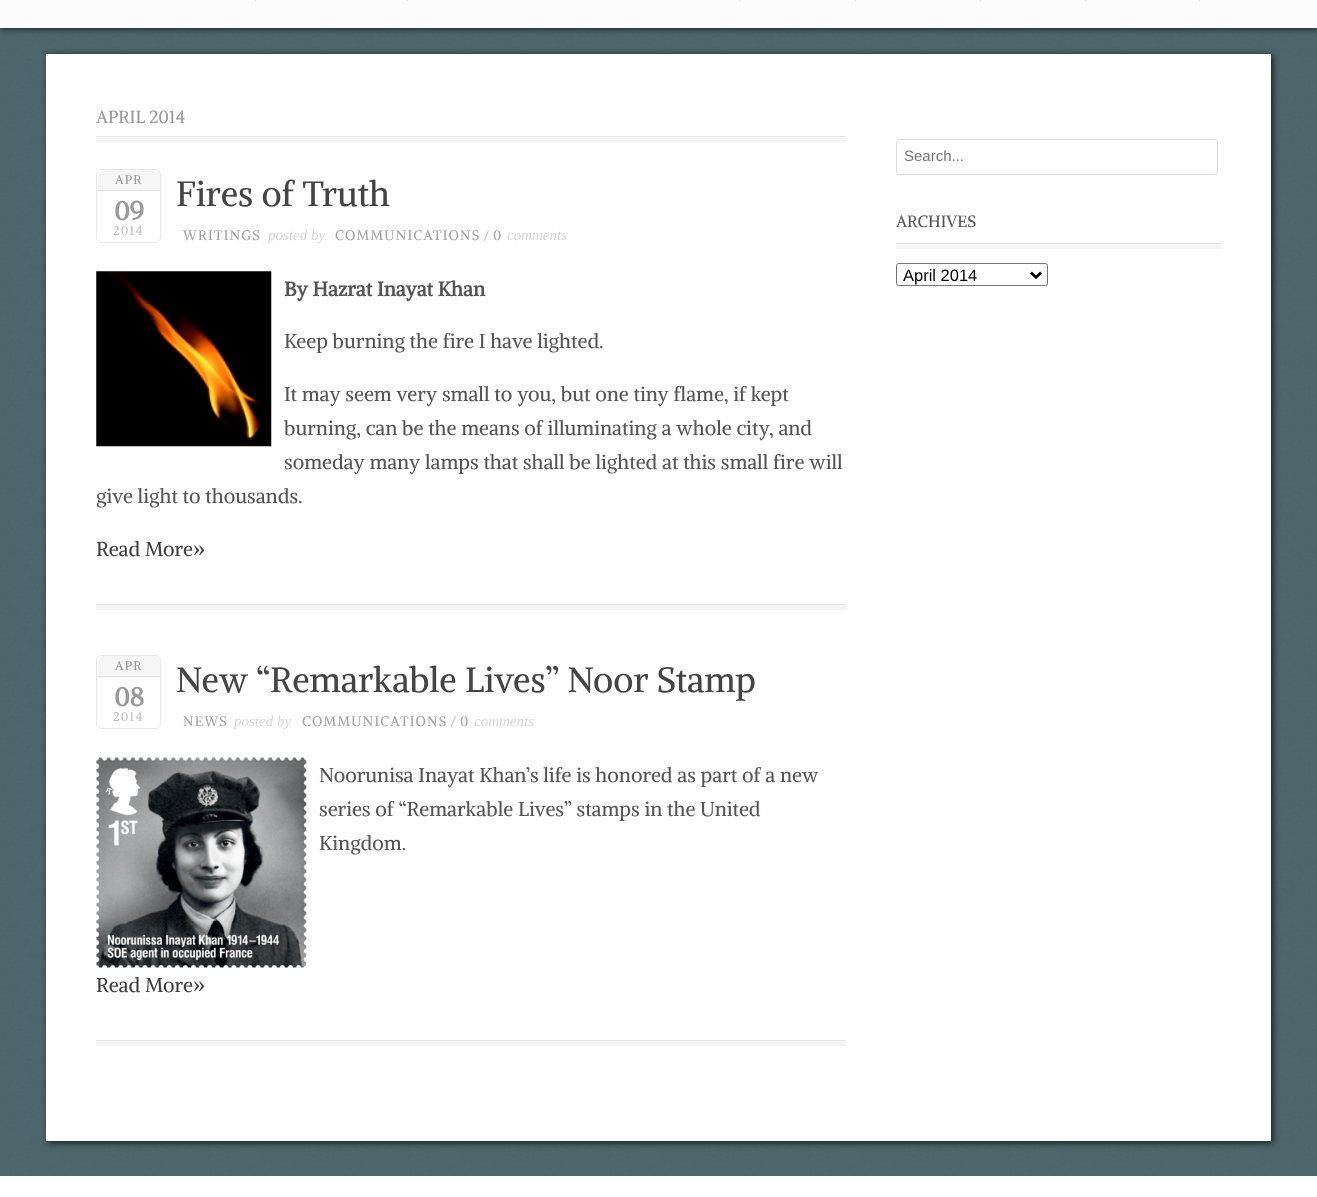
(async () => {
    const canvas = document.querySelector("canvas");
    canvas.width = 1317;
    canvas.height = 1197;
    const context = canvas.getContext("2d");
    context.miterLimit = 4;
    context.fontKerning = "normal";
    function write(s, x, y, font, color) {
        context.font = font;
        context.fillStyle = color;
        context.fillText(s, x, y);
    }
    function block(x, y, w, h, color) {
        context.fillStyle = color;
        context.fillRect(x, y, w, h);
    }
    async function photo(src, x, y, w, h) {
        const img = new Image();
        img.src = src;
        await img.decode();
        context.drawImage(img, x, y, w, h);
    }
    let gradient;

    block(0, 0, 1317, 1197, "rgb(106, 145, 153)");
    await photo("media/1.png", 0, 28, 1317, 1148);
    context.fillStyle = "rgba(0, 0, 0, 0.7)";
    context.filter = "blur(3px)";
    context.beginPath();
    context.rect(1, -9, 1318, 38);
    context.fill();
    context.filter = "none";
    gradient = context.createLinearGradient(659, -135, 659, 28);
    gradient.addColorStop(0, "rgb(255, 255, 255)");
    gradient.addColorStop(1, "rgb(252, 252, 252)");
    context.fillStyle = gradient;
    context.fillRect(0, 0, 1317, 28);
    context.beginPath();
    context.moveTo(255.5, -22.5);
    context.lineTo(255.5, 2.5);
    context.strokeStyle = "rgb(221, 221, 221)";
    context.lineWidth = 1.2;
    context.setLineDash([1.25, 1.25]);
    context.stroke();
    context.beginPath();
    context.moveTo(407, -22.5);
    context.lineTo(407, 2.5);
    context.stroke();
    context.beginPath();
    context.moveTo(739.5, -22.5);
    context.lineTo(739.5, 2.5);
    context.stroke();
    context.beginPath();
    context.moveTo(855.5, -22.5);
    context.lineTo(855.5, 2.5);
    context.stroke();
    context.beginPath();
    context.moveTo(980.5, -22.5);
    context.lineTo(980.5, 2.5);
    context.stroke();
    context.beginPath();
    context.moveTo(1085.5, -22.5);
    context.lineTo(1085.5, 2.5);
    context.stroke();
    context.beginPath();
    context.moveTo(1199.5, -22.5);
    context.lineTo(1199.5, 2.5);
    context.stroke();
    context.fillStyle = "rgba(0, 0, 0, 0.7)";
    context.filter = "blur(3px)";
    context.beginPath();
    context.rect(48, 55, 1225, 1088);
    context.fill();
    context.filter = "none";
    block(46, 54, 1225, 1087, "rgb(255, 255, 255)");
    context.fillStyle = "rgb(244, 244, 244)";
    context.beginPath();
    context.moveTo(96, 109);
    context.lineTo(96, 143);
    context.lineTo(846, 143);
    context.lineTo(846, 138);
    context.lineTo(96, 138);
    context.closePath();
    context.fill();
    block(96, 136, 750, 1, "rgb(230, 230, 230)");
    write("APRIL 2014", 96, 123, "17.5px Alike", "rgb(153, 153, 153)");
    context.beginPath();
    context.roundRect(96.5, 169.5, 64, 73, 5.5);
    context.strokeStyle = "rgb(232, 232, 232)";
    context.lineWidth = 1;
    context.setLineDash([]);
    context.stroke();
    context.fillStyle = "rgb(245, 245, 245)";
    context.beginPath();
    context.roundRect(98, 170, 62, 21, [6, 6, 0, 0]);
    context.fill();
    block(98, 190, 62, 1, "rgb(227, 227, 227)");
    context.letterSpacing = "1.25px";
    write("APR", 115, 184, "12.5px Alike", "rgb(153, 153, 153)");
    context.letterSpacing = "0px";
    write("09", 114, 220, "bold 26px Alike", "rgb(153, 153, 153)");
    context.letterSpacing = "1.25px";
    write("2014", 113, 235, "12.5px Alike", "rgb(190, 190, 190)");
    context.letterSpacing = "0px";
    write("Fires of Truth", 176, 206, "35px Alike", "rgb(68, 68, 68)");
    context.letterSpacing = "1.25px";
    write("WRITINGS", 183, 240, "13.75px Alike", "rgb(163, 163, 163)");
    context.letterSpacing = "0px";
    write("posted by", 268, 240, "italic 15px Liberation Serif", "rgb(213, 213, 213)");
    context.letterSpacing = "1.25px";
    write("COMMUNICATIONS", 335, 240, "13.75px Alike", "rgb(163, 163, 163)");
    context.letterSpacing = "0px";
    write("/", 483, 240, "13.75px Alike", "rgb(181, 181, 181)");
    context.letterSpacing = "1.25px";
    write("0", 493, 240, "13.75px Alike", "rgb(163, 163, 163)");
    context.letterSpacing = "0px";
    write("comments", 507, 240, "italic 15px Liberation Serif", "rgb(213, 213, 213)");
    context.fillStyle = "rgb(244, 244, 244)";
    context.beginPath();
    context.moveTo(96, 258);
    context.lineTo(96, 610);
    context.lineTo(846, 610);
    context.lineTo(846, 605);
    context.lineTo(96, 605);
    context.closePath();
    context.fill();
    block(96, 604, 750, 1, "rgb(230, 230, 230)");
    await photo("media/2.png", 96, 271, 176, 176);
    write("By Hazrat Inayat Khan", 284, 296, "bold 20px Alike", "rgb(85, 85, 85)");
    write("Keep burning the fire I have lighted.", 284, 348, "20px Alike", "rgb(85, 85, 85)");
    write("It may seem very small to you, but one tiny flame, if kept", 284, 401, "20px Alike", "rgb(85, 85, 85)");
    write("burning, can be the means of illuminating a whole city, and", 284, 435, "20px Alike", "rgb(85, 85, 85)");
    write("someday many lamps that shall be lighted at this small fire will", 284, 469, "20px Alike", "rgb(85, 85, 85)");
    write("give light to thousands.", 96, 503, "20px Alike", "rgb(85, 85, 85)");
    write("Read More", 96, 556, "20px Alike", "rgb(61, 61, 61)");
    write("»", 193, 556, "25px Liberation Serif", "rgb(61, 61, 61)");
    context.beginPath();
    context.roundRect(96.5, 655.5, 64, 73, 5.5);
    context.stroke();
    context.fillStyle = "rgb(245, 245, 245)";
    context.beginPath();
    context.roundRect(98, 656, 62, 22, [6, 6, 0, 0]);
    context.fill();
    block(98, 676, 62, 1, "rgb(227, 227, 227)");
    context.letterSpacing = "1.25px";
    write("APR", 115, 670, "12.5px Alike", "rgb(153, 153, 153)");
    context.letterSpacing = "0px";
    write("08", 114, 706, "bold 26px Alike", "rgb(153, 153, 153)");
    context.letterSpacing = "1.25px";
    write("2014", 113, 721, "12.5px Alike", "rgb(190, 190, 190)");
    context.letterSpacing = "0px";
    write("New “Remarkable Lives” Noor Stamp", 176, 692, "35px Alike", "rgb(68, 68, 68)");
    context.letterSpacing = "1.25px";
    write("NEWS", 183, 726, "13.75px Alike", "rgb(163, 163, 163)");
    context.letterSpacing = "0px";
    write("posted by", 234, 726, "italic 15px Liberation Serif", "rgb(213, 213, 213)");
    context.letterSpacing = "1.25px";
    write("COMMUNICATIONS", 302, 726, "13.75px Alike", "rgb(163, 163, 163)");
    context.letterSpacing = "0px";
    write("/", 450, 726, "13.75px Alike", "rgb(181, 181, 181)");
    context.letterSpacing = "1.25px";
    write("0", 460, 726, "13.75px Alike", "rgb(163, 163, 163)");
    context.letterSpacing = "0px";
    write("comments", 474, 726, "italic 15px Liberation Serif", "rgb(213, 213, 213)");
    context.fillStyle = "rgb(244, 244, 244)";
    context.beginPath();
    context.moveTo(96, 744);
    context.lineTo(96, 1046);
    context.lineTo(846, 1046);
    context.lineTo(846, 1041);
    context.lineTo(96, 1041);
    context.closePath();
    context.fill();
    block(96, 1040, 750, 1, "rgb(230, 230, 230)");
    await photo("media/3.png", 96, 757, 211, 211);
    write("Noorunisa Inayat Khan’s life is honored as part of a new", 319, 782, "20px Alike", "rgb(85, 85, 85)");
    write("series of “Remarkable Lives” stamps in the United", 319, 816, "20px Alike", "rgb(85, 85, 85)");
    write("Kingdom.", 319, 850, "20px Alike", "rgb(85, 85, 85)");
    write("Read More", 96, 992, "20px Alike", "rgb(61, 61, 61)");
    write("»", 193, 992, "25px Liberation Serif", "rgb(61, 61, 61)");
    context.beginPath();
    context.roundRect(896.5, 139.5, 321, 35, 3.5);
    context.strokeStyle = "rgb(221, 221, 221)";
    context.stroke();
    write("Search...", 904, 161, "15px Liberation Sans", "rgb(117, 117, 117)");
    context.fillStyle = "rgb(244, 244, 244)";
    context.beginPath();
    context.moveTo(896, 206);
    context.lineTo(896, 249);
    context.lineTo(1221, 249);
    context.lineTo(1221, 244);
    context.lineTo(896, 244);
    context.closePath();
    context.fill();
    block(896, 243, 325, 1, "rgb(230, 230, 230)");
    write("ARCHIVES", 896, 227, "16.25px Alike", "rgb(85, 85, 85)");
    context.beginPath();
    context.roundRect(896.5, 263.5, 151, 22, 2);
    context.strokeStyle = "rgb(118, 118, 118)";
    context.stroke();
    context.beginPath();
    context.moveTo(1031, 272.5);
    context.lineTo(1036, 277.5);
    context.lineTo(1041, 272.5);
    context.strokeStyle = "rgb(0, 0, 0)";
    context.lineWidth = 2.5;
    context.stroke();
    write("April 2014", 903, 281, "16.5px Liberation Sans", "rgb(0, 0, 0)");
    block(0, 1176, 1317, 21, "rgb(255, 255, 255)");
})();
